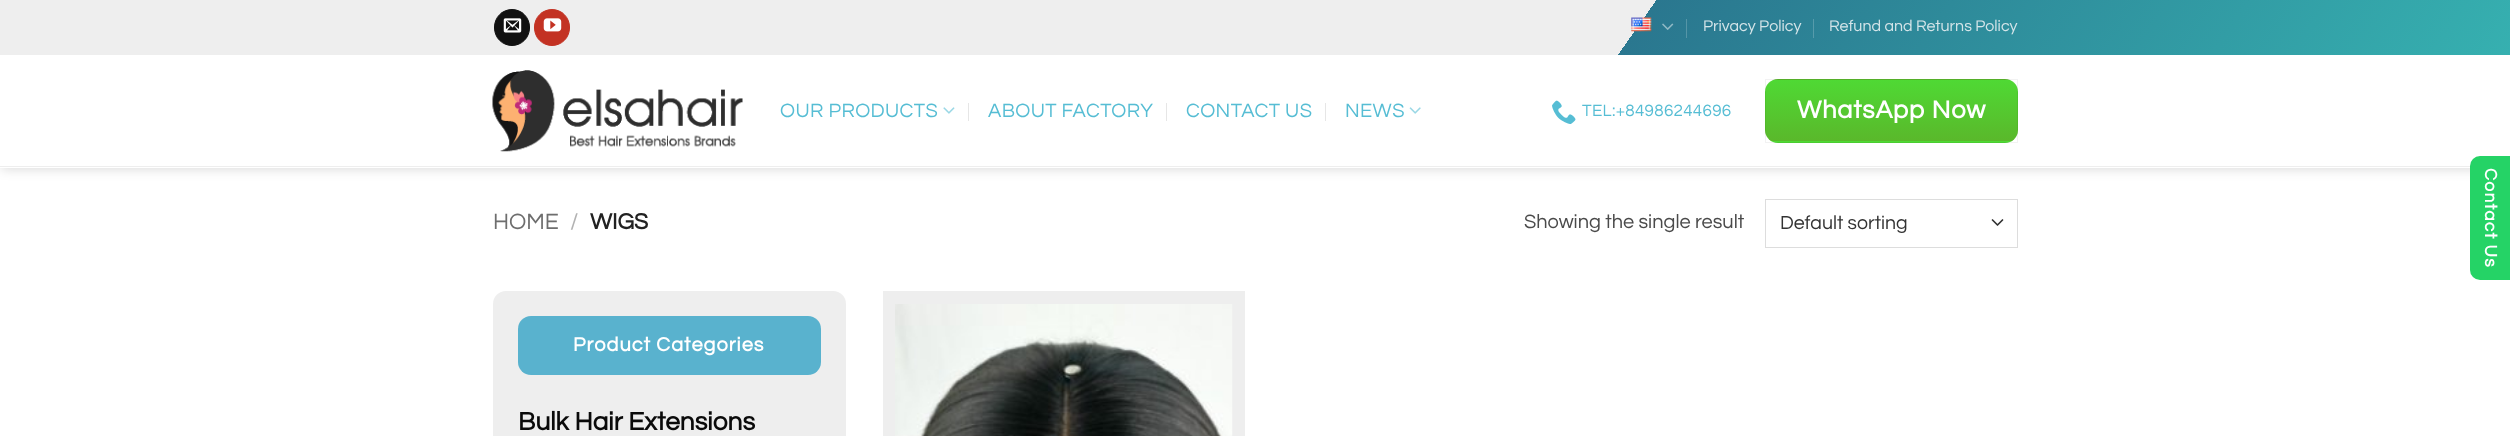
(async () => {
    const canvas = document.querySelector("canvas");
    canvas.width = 2510;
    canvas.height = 436;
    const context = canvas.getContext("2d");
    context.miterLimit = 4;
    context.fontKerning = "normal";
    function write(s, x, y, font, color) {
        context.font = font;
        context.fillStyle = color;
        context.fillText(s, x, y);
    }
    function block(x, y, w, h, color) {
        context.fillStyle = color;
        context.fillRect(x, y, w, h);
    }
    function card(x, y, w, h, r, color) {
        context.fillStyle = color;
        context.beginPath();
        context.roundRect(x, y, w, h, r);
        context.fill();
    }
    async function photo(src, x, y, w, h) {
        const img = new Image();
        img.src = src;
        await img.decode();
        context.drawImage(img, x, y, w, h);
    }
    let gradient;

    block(0, 0, 2510, 436, "rgb(255, 255, 255)");
    context.fillStyle = "rgba(0, 0, 0, 0.15)";
    context.filter = "blur(6px)";
    context.beginPath();
    context.rect(1, 1, 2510, 168);
    context.fill();
    context.filter = "none";
    gradient = context.createLinearGradient(400, -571, 2110, 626);
    gradient.addColorStop(0.65, "rgb(238, 238, 238)");
    gradient.addColorStop(0.65, "rgb(42, 119, 143)");
    gradient.addColorStop(1, "rgb(54, 176, 176)");
    context.fillStyle = gradient;
    context.fillRect(0, 0, 2510, 55);
    context.fillStyle = "rgb(17, 17, 17)";
    context.beginPath();
    context.roundRect(494.5, 9.5, 35, 36, 17.5);
    context.fill();
    context.strokeStyle = "rgb(17, 17, 17)";
    context.stroke();
    await photo("media/1.png", 503, 18, 19, 15);
    context.fillStyle = "rgb(195, 50, 35)";
    context.beginPath();
    context.roundRect(534.5, 9.5, 35, 36, 17.5);
    context.fill();
    context.strokeStyle = "rgb(195, 50, 35)";
    context.stroke();
    await photo("media/2.png", 543, 18, 19, 14);
    await photo("media/3.png", 1631, 17, 21, 15);
    await photo("media/4.png", 1662, 23, 12, 7);
    block(1686, 19, 1, 19, "rgb(85, 149, 167)");
    write("Privacy Policy", 1703, 31, "16px Questrial", "rgb(213, 229, 233)");
    block(1813, 19, 1, 19, "rgb(86, 155, 171)");
    write("Refund and Returns Policy", 1829, 31, "16px Questrial", "rgb(213, 229, 233)");
    block(0, 55, 2510, 113, "rgb(255, 255, 255)");
    block(0, 166, 2470, 1, "rgb(238, 238, 238)");
    await photo("media/5.png", 492, 70, 251, 82);
    context.letterSpacing = "0.4px";
    write("OUR PRODUCTS", 780, 117, "20px Questrial", "rgb(86, 189, 212)");
    await photo("media/6.png", 943, 107, 12, 7);
    block(968, 103, 1, 18, "rgb(230, 230, 230)");
    write("ABOUT FACTORY", 988, 117, "20px Questrial", "rgb(86, 189, 212)");
    block(1166, 103, 1, 18, "rgb(230, 230, 230)");
    write("CONTACT US", 1186, 117, "20px Questrial", "rgb(86, 189, 212)");
    block(1325, 103, 1, 18, "rgb(230, 230, 230)");
    write("NEWS", 1345, 117, "20px Questrial", "rgb(86, 189, 212)");
    await photo("media/7.png", 1409, 107, 12, 7);
    await photo("media/8.png", 1552, 100, 24, 24);
    context.letterSpacing = "0.3px";
    write("TEL:+84986244696", 1582, 116, "17px Questrial", "rgb(86, 189, 212)");
    context.save();
    context.beginPath();
    context.roundRect(1765, 79, 253, 64, 13);
    context.clip();
    gradient = context.createLinearGradient(1891, 19, 1891, 80);
    gradient.addColorStop(0, "rgb(79, 217, 52)");
    gradient.addColorStop(1, "rgb(90, 184, 43)");
    context.fillStyle = gradient;
    context.fillRect(1765, 79, 253, 1);
    gradient = context.createLinearGradient(1891, 80, 1891, 141);
    gradient.addColorStop(0, "rgb(79, 217, 52)");
    gradient.addColorStop(1, "rgb(90, 184, 43)");
    context.fillStyle = gradient;
    context.fillRect(1765, 80, 253, 61);
    gradient = context.createLinearGradient(1891, 141, 1891, 203);
    gradient.addColorStop(0, "rgb(79, 217, 52)");
    gradient.addColorStop(1, "rgb(90, 184, 43)");
    context.fillStyle = gradient;
    context.fillRect(1765, 141, 253, 2);
    context.restore();
    context.strokeStyle = "rgba(0, 0, 0, 0.05)";
    context.strokeRect(1765.5, 79.5, 252, 63);
    context.letterSpacing = "0.75px";
    write("WhatsApp Now", 1797, 118, "bold 25.5px Questrial", "rgb(255, 255, 255)");
    context.letterSpacing = "0px";
    write("HOME", 493, 229, "23px Questrial", "rgb(110, 110, 110)");
    write("/", 570, 229, "23px Questrial", "rgb(178, 178, 178)");
    write("WIGS", 590, 229, "bold 23px Questrial", "rgb(34, 34, 34)");
    write("Showing the single result", 1524, 228, "20px Questrial", "rgb(74, 74, 74)");
    context.beginPath();
    context.moveTo(1992.5, 220);
    context.lineTo(1997.5, 225);
    context.lineTo(2002.5, 220);
    context.strokeStyle = "rgb(51, 51, 51)";
    context.lineWidth = 1.7;
    context.lineCap = "round";
    context.lineJoin = "round";
    context.stroke();
    context.strokeStyle = "rgb(221, 221, 221)";
    context.lineWidth = 1;
    context.lineJoin = "miter";
    context.strokeRect(1765.5, 199.5, 252, 48);
    write("Default sorting", 1780, 229, "19.5px Questrial", "rgb(51, 51, 51)");
    card(493, 291, 353, 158, 13, "rgb(238, 238, 238)");
    card(518, 316, 303, 59, 13, "rgb(89, 178, 206)");
    context.letterSpacing = "1px";
    write("Product Categories", 573, 351, "bold 20px Questrial", "rgb(255, 255, 255)");
    context.letterSpacing = "0px";
    write("Bulk Hair Extensions", 518, 430, "bold 26.25px Questrial", "rgb(10, 10, 10)");
    block(883, 291, 362, 145, "rgb(238, 238, 238)");
    await photo("media/9.png", 895, 304, 338, 132);
    context.fillStyle = "rgb(37, 211, 102)";
    context.beginPath();
    context.roundRect(2470, 156, 40, 124, [10, 0, 0, 10]);
    context.fill();
    context.letterSpacing = "1.25px";
    context.font = "bold 17.5px Questrial";
    context.fillStyle = "rgb(255, 255, 255)";
    context.save();
    context.translate(2485, 168);
    context.rotate(90 * Math.PI / 180);
    context.fillText("Contact Us", 0, 0);
    context.restore();
})();
